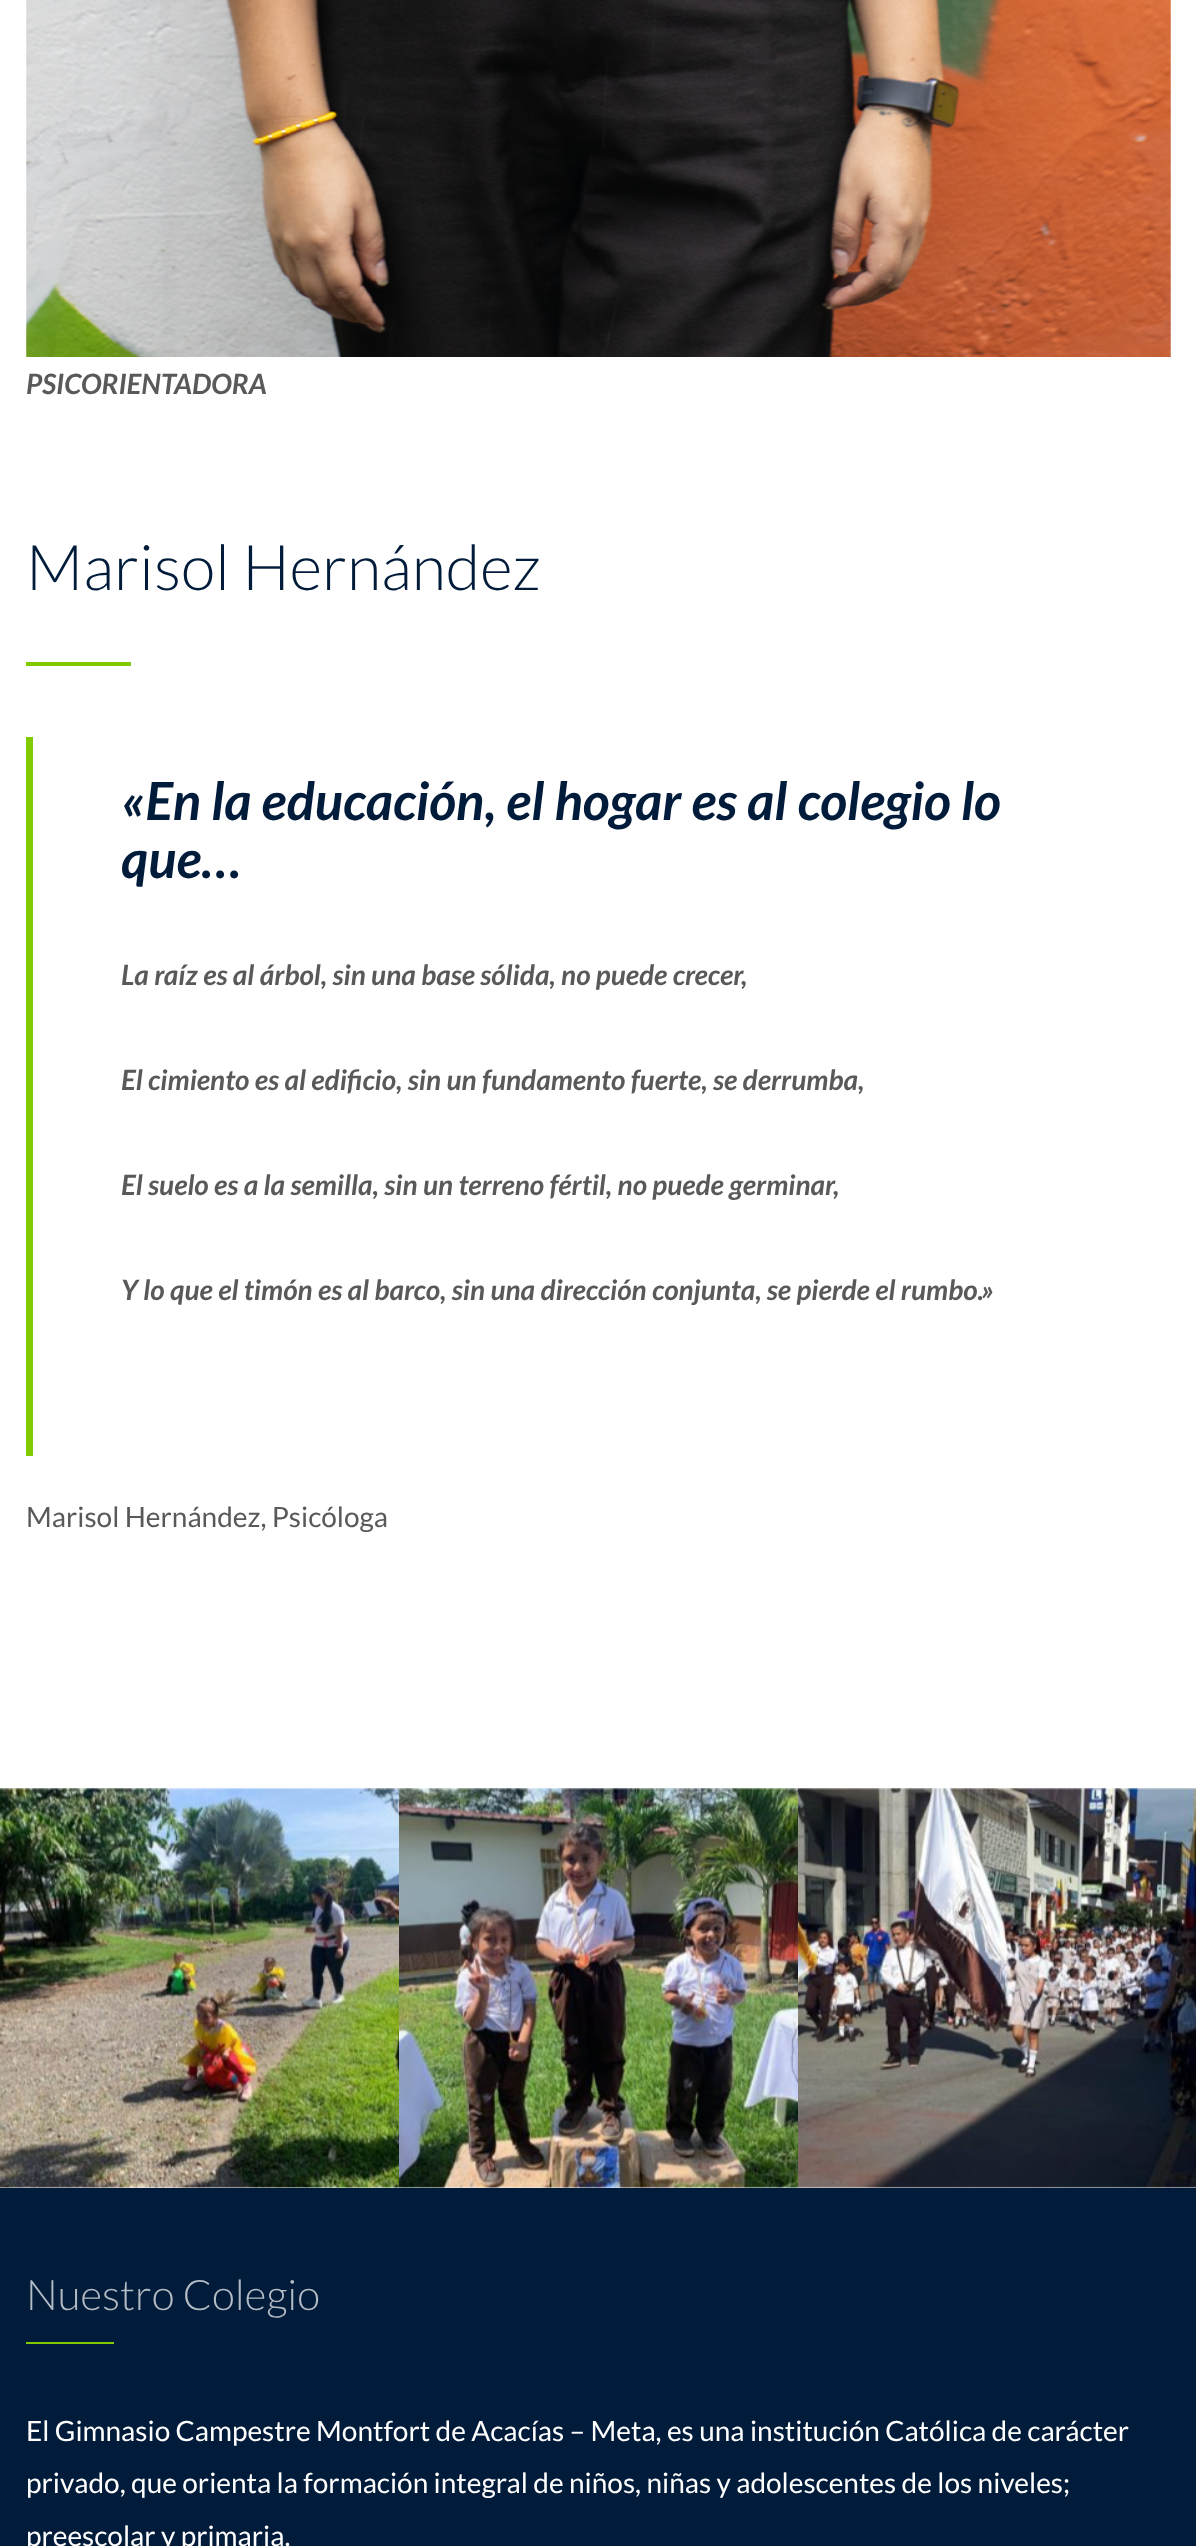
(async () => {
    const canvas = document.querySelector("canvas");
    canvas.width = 1196;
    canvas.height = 2546;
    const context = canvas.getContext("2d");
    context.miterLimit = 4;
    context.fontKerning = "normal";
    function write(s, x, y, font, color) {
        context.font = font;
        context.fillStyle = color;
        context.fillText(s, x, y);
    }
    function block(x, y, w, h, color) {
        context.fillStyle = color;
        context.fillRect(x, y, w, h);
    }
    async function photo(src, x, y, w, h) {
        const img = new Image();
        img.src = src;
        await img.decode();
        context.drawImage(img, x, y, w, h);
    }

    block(0, 0, 1196, 2546, "rgb(248, 248, 248)");
    block(0, 0, 1196, 1789, "rgb(255, 255, 255)");
    await photo("media/1.png", 26, 0, 1145, 357);
    write("PSICORIENTADORA", 26, 394, "italic bold 28px Lato", "rgb(89, 89, 89)");
    write("Marisol Hernández", 26, 590, "300 63px Lato", "rgb(1, 27, 58)");
    block(26, 662, 105, 4, "rgb(129, 202, 0)");
    block(26, 737, 7, 719, "rgb(129, 202, 0)");
    write("«En la educación, el hogar es al colegio lo", 121, 820, "italic bold 52.5px Lato", "rgb(1, 27, 58)");
    write("que…", 121, 878, "italic bold 52.5px Lato", "rgb(1, 27, 58)");
    write("La raíz es al árbol, sin una base sólida, no puede crecer,", 121, 985, "italic bold 28px Lato", "rgb(89, 89, 89)");
    write("El cimiento es al edificio, sin un fundamento fuerte, se derrumba,", 121, 1090, "italic bold 28px Lato", "rgb(89, 89, 89)");
    write("El suelo es a la semilla, sin un terreno fértil, no puede germinar,", 121, 1195, "italic bold 28px Lato", "rgb(89, 89, 89)");
    write("Y lo que el timón es al barco, sin una dirección conjunta, se pierde el rumbo.»", 121, 1300, "italic bold 28px Lato", "rgb(89, 89, 89)");
    write("Marisol Hernández, Psicóloga", 26, 1527, "28px Lato", "rgb(89, 89, 89)");
    await photo("media/2.png", 0, 1788, 399, 400);
    await photo("media/3.png", 399, 1788, 399, 400);
    await photo("media/4.png", 798, 1788, 398, 400);
    block(0, 2188, 1196, 358, "rgb(1, 27, 58)");
    write("Nuestro Colegio", 26, 2310, "300 42px Lato", "rgb(179, 187, 196)");
    block(26, 2342, 88, 2, "rgb(129, 202, 0)");
    write("El Gimnasio Campestre Montfort de Acacías – Meta, es una institución Católica de carácter", 26, 2441, "28px Lato", "rgb(255, 255, 255)");
    write("privado, que orienta la formación integral de niños, niñas y adolescentes de los niveles;", 26, 2493, "28px Lato", "rgb(255, 255, 255)");
    write("preescolar y primaria.", 26, 2546, "28px Lato", "rgb(255, 255, 255)");
})();
